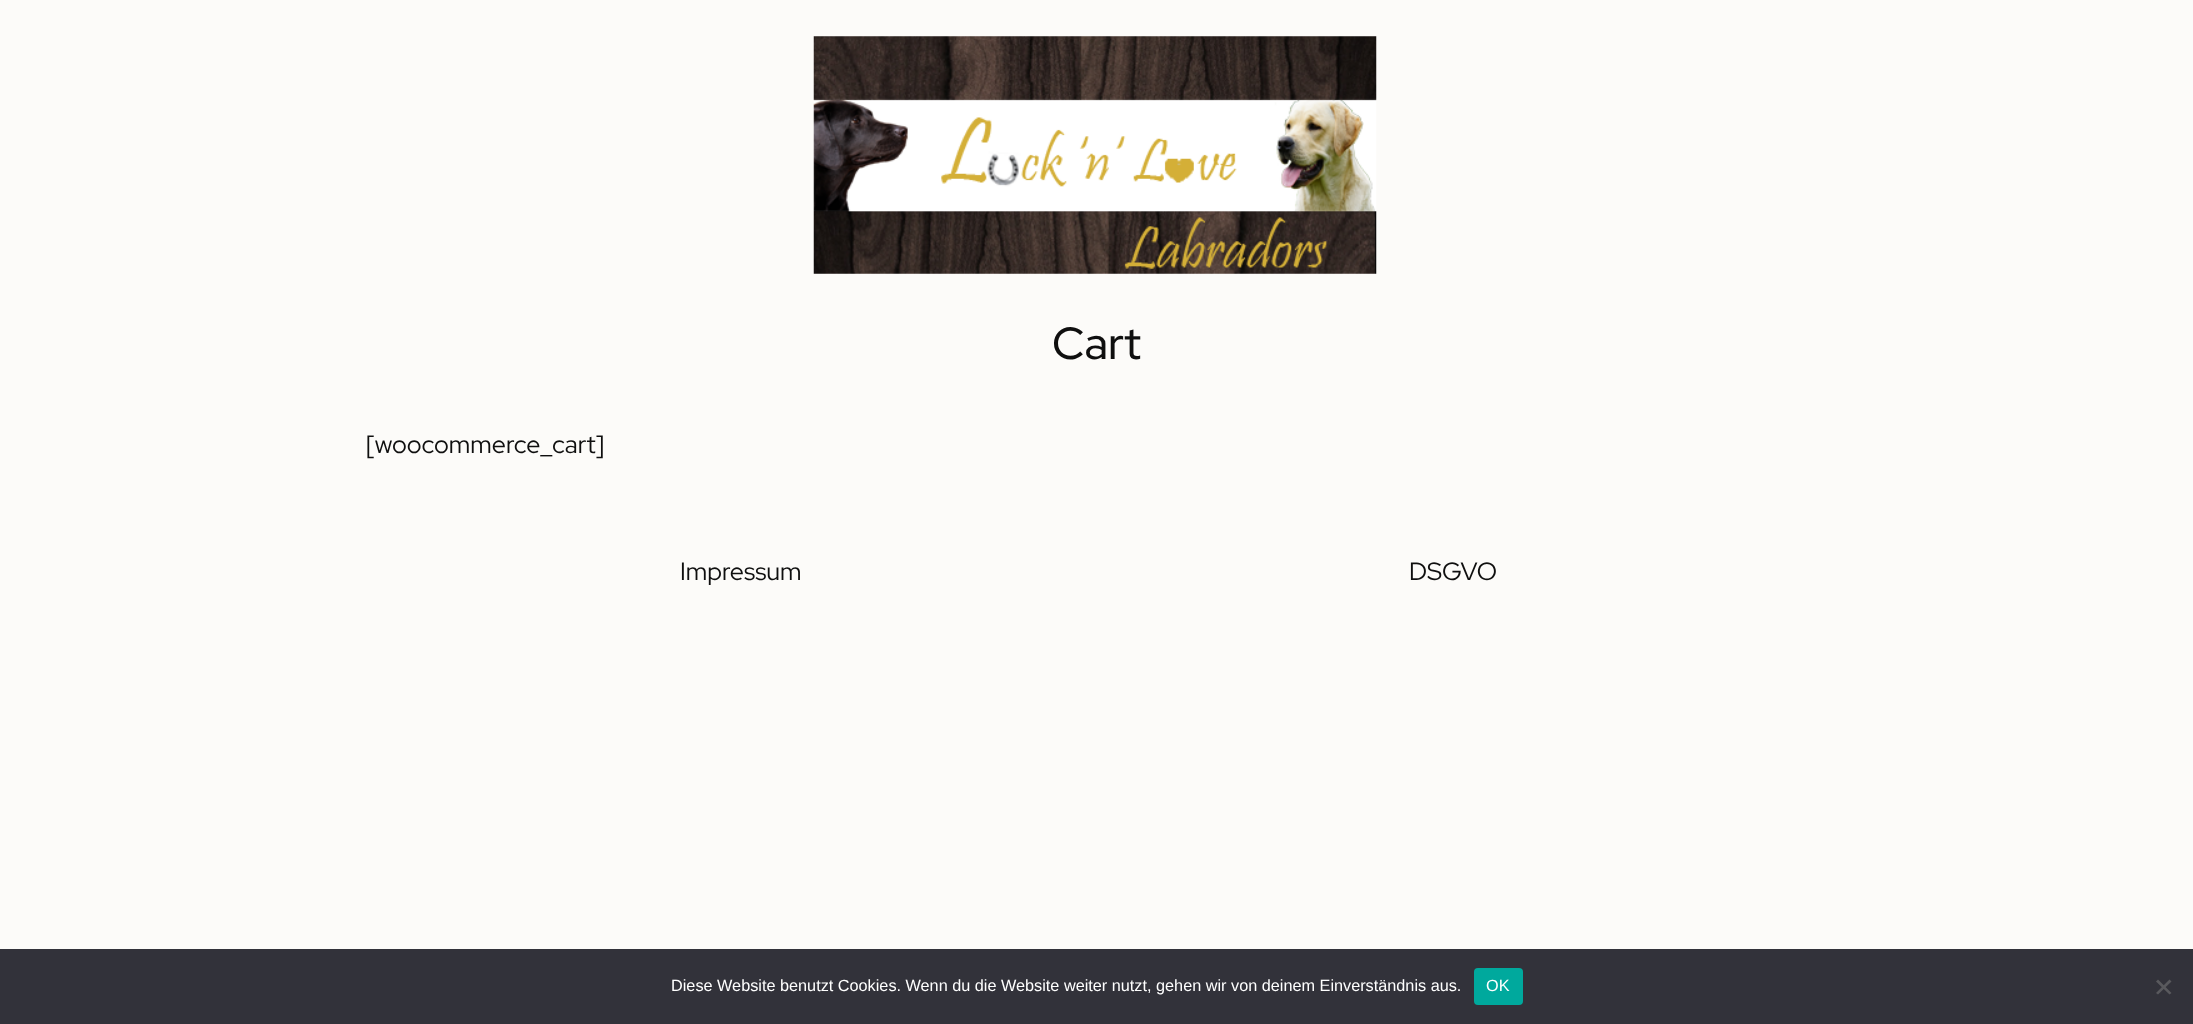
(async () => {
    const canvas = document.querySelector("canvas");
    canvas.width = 2193;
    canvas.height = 1024;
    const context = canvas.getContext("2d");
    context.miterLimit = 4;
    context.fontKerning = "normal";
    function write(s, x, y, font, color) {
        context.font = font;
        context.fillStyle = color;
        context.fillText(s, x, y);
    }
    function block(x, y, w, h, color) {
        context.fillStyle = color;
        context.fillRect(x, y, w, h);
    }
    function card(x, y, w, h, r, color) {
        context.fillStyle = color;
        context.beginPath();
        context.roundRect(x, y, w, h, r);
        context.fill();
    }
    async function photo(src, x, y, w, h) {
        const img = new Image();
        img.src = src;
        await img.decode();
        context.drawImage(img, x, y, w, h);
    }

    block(0, 0, 2193, 1024, "rgb(252, 251, 249)");
    await photo("media/1.png", 813, 36, 564, 238);
    write("Cart", 1052, 359, "500 45px Red Hat Display", "rgb(15, 15, 15)");
    write("[woocommerce_cart]", 366, 453, "25px Red Hat Display", "rgb(15, 15, 15)");
    write("Impressum", 680, 580, "25px Red Hat Display", "rgb(15, 15, 15)");
    write("DSGVO", 1409, 580, "25px Red Hat Display", "rgb(15, 15, 15)");
    block(0, 949, 2193, 75, "rgb(50, 50, 58)");
    write("Diese Website benutzt Cookies. Wenn du die Website weiter nutzt, gehen wir von deinem Einverständnis aus.", 671, 991, "16.25px Liberation Sans", "rgb(255, 255, 255)");
    card(1474, 968, 49, 37, 4, "rgb(0, 169, 157)");
    write("OK", 1486, 991, "16.25px Liberation Sans", "rgb(255, 255, 255)");
    context.fillStyle = "rgb(89, 89, 93)";
    context.beginPath();
    context.moveTo(2169.5, 979.5);
    context.lineTo(2171.5, 981.5);
    context.lineTo(2158, 994.5);
    context.lineTo(2156, 993);
    context.closePath();
    context.fill();
    context.beginPath();
    context.moveTo(2156, 981.5);
    context.lineTo(2158, 979.5);
    context.lineTo(2171.5, 993);
    context.lineTo(2169.5, 994.5);
    context.closePath();
    context.fill();
})();
